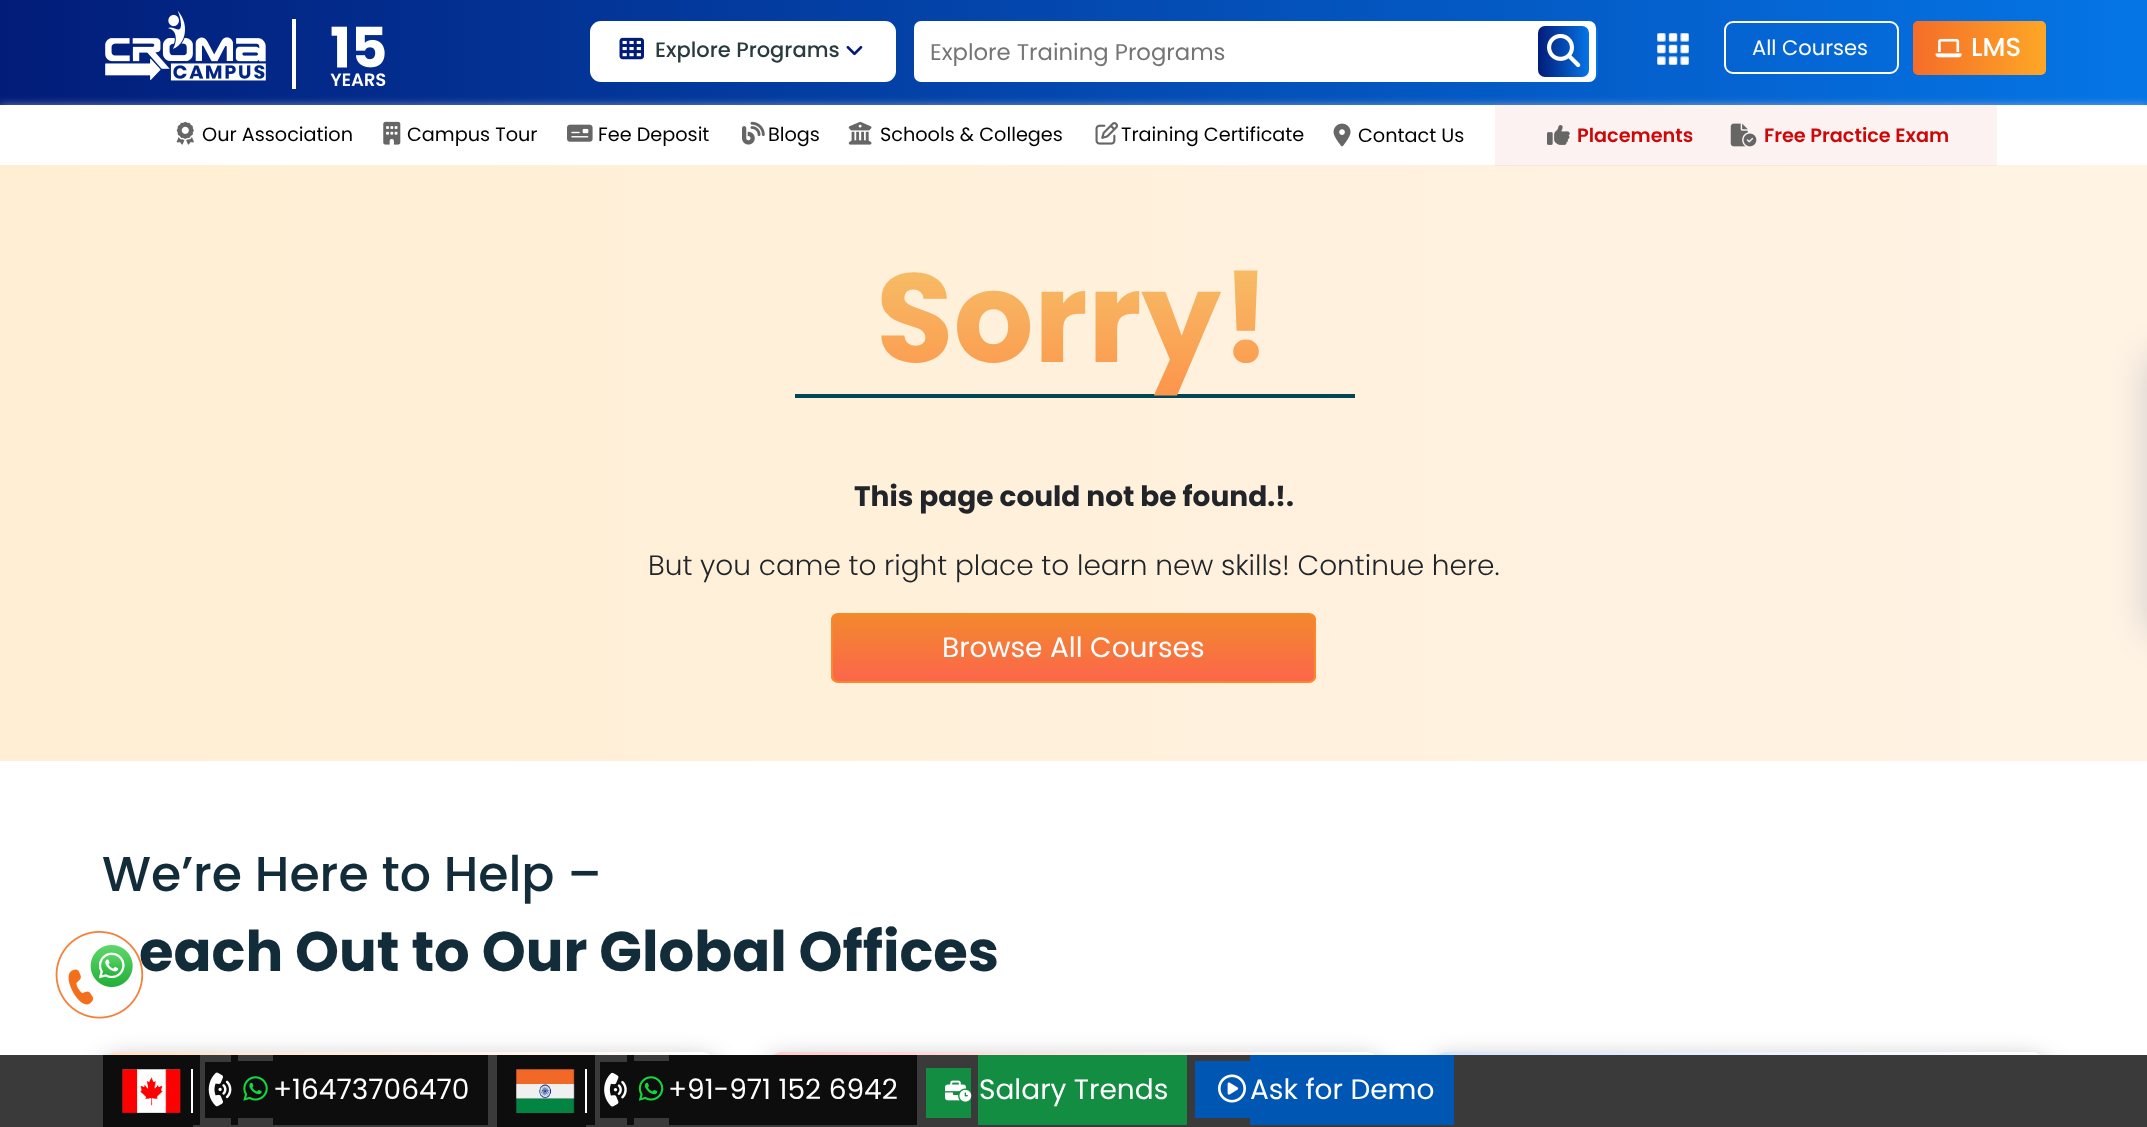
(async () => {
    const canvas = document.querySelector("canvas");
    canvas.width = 2147;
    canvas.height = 1127;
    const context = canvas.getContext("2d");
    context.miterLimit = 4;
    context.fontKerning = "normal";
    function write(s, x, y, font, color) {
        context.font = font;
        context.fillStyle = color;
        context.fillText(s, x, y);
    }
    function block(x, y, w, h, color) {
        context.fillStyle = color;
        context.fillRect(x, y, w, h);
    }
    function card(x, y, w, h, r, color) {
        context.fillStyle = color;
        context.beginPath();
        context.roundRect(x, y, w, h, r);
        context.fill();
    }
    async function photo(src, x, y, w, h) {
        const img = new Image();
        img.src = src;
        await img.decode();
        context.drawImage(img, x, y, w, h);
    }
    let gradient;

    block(0, 0, 2147, 1127, "rgb(255, 255, 255)");
    gradient = context.createLinearGradient(0, 53, 2147, 52);
    gradient.addColorStop(0, "rgb(2, 28, 121)");
    gradient.addColorStop(1, "rgb(5, 117, 230)");
    context.fillStyle = gradient;
    context.fillRect(0, 0, 2147, 105);
    await photo("media/1.png", 105, 10, 161, 71);
    block(292, 19, 4, 70, "rgb(255, 255, 255)");
    await photo("media/2.png", 330, 26, 56, 61);
    context.beginPath();
    context.roundRect(591, 22, 304, 59, 10);
    context.fill();
    context.strokeStyle = "rgb(255, 255, 255)";
    context.lineWidth = 2;
    context.stroke();
    await photo("media/3.png", 619, 37, 25, 23);
    write("Explore Programs", 655, 57, "500 21px Poppins", "rgb(41, 59, 63)");
    await photo("media/4.png", 846, 46, 17, 10);
    gradient = context.createLinearGradient(1523, 52, 1598, 52);
    gradient.addColorStop(0, "rgb(2, 28, 121)");
    gradient.addColorStop(1, "rgb(5, 117, 230)");
    context.fillStyle = gradient;
    context.beginPath();
    context.roundRect(1523, 25, 75, 54, 7);
    context.fill();
    card(914, 21, 682, 61, 7, "rgb(255, 255, 255)");
    write("Explore Training Programs", 930, 60, "22.75px Poppins", "rgb(117, 117, 117)");
    gradient = context.createLinearGradient(1538, 52, 1589, 52);
    gradient.addColorStop(0, "rgb(2, 28, 121)");
    gradient.addColorStop(1, "rgb(5, 117, 230)");
    context.fillStyle = gradient;
    context.beginPath();
    context.roundRect(1538, 26, 51, 51, 7);
    context.fill();
    await photo("media/5.png", 1547, 33, 34, 35);
    await photo("media/6.png", 1657, 33, 32, 32);
    context.beginPath();
    context.roundRect(1725, 22, 173, 51, 8);
    context.stroke();
    write("All Courses", 1752, 55, "21px Poppins", "rgb(255, 255, 255)");
    gradient = context.createLinearGradient(1913, 48, 2046, 48);
    gradient.addColorStop(0, "rgb(245, 109, 41)");
    gradient.addColorStop(1, "rgb(253, 167, 38)");
    context.fillStyle = gradient;
    context.beginPath();
    context.roundRect(1913, 21, 133, 54, 5);
    context.fill();
    await photo("media/7.png", 1935, 38, 27, 20);
    write("LMS", 1971, 56, "500 26px Poppins", "rgb(255, 255, 255)");
    context.fillStyle = "rgba(220, 220, 220, 0.52)";
    context.filter = "blur(4.5px)";
    context.beginPath();
    context.rect(0, 105, 2147, 60);
    context.fill();
    context.filter = "none";
    block(0, 105, 2147, 60, "rgb(255, 255, 255)");
    await photo("media/8.png", 176, 121, 18, 24);
    write("Our Association", 202, 141, "19.25px Poppins", "rgb(0, 0, 0)");
    await photo("media/9.png", 383, 121, 18, 24);
    write("Campus Tour", 407, 141, "19.25px Poppins", "rgb(0, 0, 0)");
    await photo("media/10.png", 567, 124, 26, 18);
    write("Fee Deposit", 598, 141, "19.25px Poppins", "rgb(0, 0, 0)");
    await photo("media/11.png", 742, 121, 23, 24);
    write("Blogs", 768, 141, "19.25px Poppins", "rgb(0, 0, 0)");
    await photo("media/12.png", 848, 121, 24, 24);
    write("Schools & Colleges", 880, 141, "19.25px Poppins", "rgb(0, 0, 0)");
    await photo("media/13.png", 1095, 122, 23, 23);
    write("Training Certificate", 1121, 141, "19.25px Poppins", "rgb(0, 0, 0)");
    await photo("media/14.png", 1333, 123, 18, 24);
    write("Contact Us", 1358, 142, "19.25px Poppins", "rgb(0, 0, 0)");
    gradient = context.createLinearGradient(0, 463, 2147, 463);
    gradient.addColorStop(0, "rgb(255, 238, 211)");
    gradient.addColorStop(1, "rgb(255, 243, 228)");
    context.fillStyle = gradient;
    context.fillRect(0, 165, 2147, 596);
    block(1495, 103, 502, 63, "rgba(227, 108, 108, 0.09)");
    await photo("media/15.png", 1547, 125, 23, 20);
    write("Placements", 1577, 142, "600 19.25px Poppins", "rgb(204, 9, 9)");
    await photo("media/16.png", 1730, 123, 27, 24);
    write("Free Practice Exam", 1764, 142, "600 19.25px Poppins", "rgb(204, 9, 9)");
    block(795, 394, 560, 4, "rgb(1, 70, 85)");
    context.font = "bold 126px Poppins";
    gradient = context.createLinearGradient(1074, 243, 1074, 398);
    gradient.addColorStop(0, "rgb(246, 196, 106)");
    gradient.addColorStop(1, "rgb(252, 148, 76)");
    context.fillStyle = gradient;
    context.fillText("Sorry!", 876, 362);
    write("This page could not be found.!.", 854, 506, "bold 28px Poppins", "rgb(33, 37, 41)");
    write("But you came to right place to learn new skills! Continue here.", 648, 575, "300 28px Poppins", "rgb(33, 37, 41)");
    context.save();
    context.beginPath();
    context.roundRect(831, 613, 485, 70, 7);
    context.clip();
    gradient = context.createLinearGradient(1074, 681, 1074, 614);
    gradient.addColorStop(0, "rgb(252, 102, 75)");
    gradient.addColorStop(1, "rgb(242, 137, 45)");
    context.fillStyle = gradient;
    context.fillRect(831, 614, 485, 67);
    context.restore();
    context.beginPath();
    context.roundRect(832, 614, 483, 68, 6);
    context.strokeStyle = "rgb(250, 135, 42)";
    context.stroke();
    write("Browse All Courses", 942, 657, "28px Poppins", "rgb(255, 255, 255)");
    context.fillStyle = "rgba(0, 12, 105, 0.17)";
    context.filter = "blur(17.5px)";
    context.beginPath();
    context.roundRect(2147, 355, 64, 280, 11);
    context.fill();
    context.filter = "none";
    write("each Out to Our Global Offices", 139, 971, "bold 56px Poppins", "rgb(18, 44, 57)");
    await photo("media/17.png", 55, 931, 89, 88);
    write("We’re Here to Help –", 102, 891, "500 49px Poppins", "rgb(18, 44, 57)");
    context.fillStyle = "rgba(0, 0, 0, 0.35)";
    context.filter = "blur(13px)";
    context.beginPath();
    context.roundRect(103, 1061, 613, 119, 14);
    context.fill();
    context.filter = "none";
    gradient = context.createLinearGradient(103, 1104, 716, 1104);
    gradient.addColorStop(0, "rgb(255, 225, 199)");
    gradient.addColorStop(1, "rgb(255, 255, 255)");
    context.fillStyle = gradient;
    context.beginPath();
    context.moveTo(117, 1052);
    context.lineTo(702, 1052);
    context.bezierCurveTo(709.5, 1052, 716, 1058.5, 716, 1066);
    context.lineTo(716, 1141);
    context.lineTo(103, 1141);
    context.lineTo(103, 1066);
    context.bezierCurveTo(103, 1058.5, 109.5, 1052, 117, 1052);
    context.closePath();
    context.fill();
    context.fillStyle = "rgba(0, 0, 0, 0.35)";
    context.filter = "blur(13px)";
    context.beginPath();
    context.roundRect(768, 1061, 613, 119, 14);
    context.fill();
    context.filter = "none";
    gradient = context.createLinearGradient(768, 1104, 1381, 1104);
    gradient.addColorStop(0, "rgb(255, 204, 204)");
    gradient.addColorStop(1, "rgb(255, 255, 255)");
    context.fillStyle = gradient;
    context.beginPath();
    context.moveTo(782, 1052);
    context.lineTo(1367, 1052);
    context.bezierCurveTo(1374.5, 1052, 1381, 1058.5, 1381, 1066);
    context.lineTo(1381, 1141);
    context.lineTo(768, 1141);
    context.lineTo(768, 1066);
    context.bezierCurveTo(768, 1058.5, 774.5, 1052, 782, 1052);
    context.closePath();
    context.fill();
    context.fillStyle = "rgba(0, 0, 0, 0.35)";
    context.filter = "blur(13px)";
    context.beginPath();
    context.roundRect(1433, 1061, 613, 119, 14);
    context.fill();
    context.filter = "none";
    gradient = context.createLinearGradient(1433, 1104, 2046, 1104);
    gradient.addColorStop(0, "rgb(214, 228, 255)");
    gradient.addColorStop(1, "rgb(255, 255, 255)");
    context.fillStyle = gradient;
    context.beginPath();
    context.moveTo(1447, 1052);
    context.lineTo(2032, 1052);
    context.bezierCurveTo(2039.5, 1052, 2046, 1058.5, 2046, 1066);
    context.lineTo(2046, 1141);
    context.lineTo(1433, 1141);
    context.lineTo(1433, 1066);
    context.bezierCurveTo(1433, 1058.5, 1439.5, 1052, 1447, 1052);
    context.closePath();
    context.fill();
    block(0, 1055, 2147, 72, "rgb(58, 58, 58)");
    block(103, 1055, 90, 72, "rgb(13, 13, 13)");
    block(193, 1055, 7, 70, "rgb(13, 13, 13)");
    block(205, 1062, 26, 56, "rgb(13, 13, 13)");
    block(231, 1055, 7, 70, "rgb(13, 13, 13)");
    block(238, 1061, 35, 57, "rgb(13, 13, 13)");
    block(273, 1055, 215, 70, "rgb(13, 13, 13)");
    await photo("media/18.png", 122, 1069, 59, 44);
    block(191, 1069, 2, 44, "rgb(255, 255, 255)");
    await photo("media/19.png", 208, 1072, 24, 35);
    await photo("media/20.png", 243, 1076, 25, 25);
    write("+16473706470", 273, 1099, "28px Poppins", "rgb(255, 255, 255)");
    block(497, 1055, 89, 72, "rgb(13, 13, 13)");
    block(586, 1055, 9, 70, "rgb(13, 13, 13)");
    block(600, 1062, 27, 56, "rgb(13, 13, 13)");
    block(627, 1055, 7, 70, "rgb(13, 13, 13)");
    block(634, 1061, 35, 57, "rgb(13, 13, 13)");
    block(669, 1055, 248, 70, "rgb(13, 13, 13)");
    await photo("media/21.png", 516, 1069, 59, 44);
    block(585, 1069, 2, 44, "rgb(255, 255, 255)");
    await photo("media/22.png", 604, 1072, 23, 35);
    await photo("media/23.png", 638, 1076, 26, 25);
    write("+91-971 152 6942", 668, 1099, "28px Poppins", "rgb(255, 255, 255)");
    block(926, 1068, 45, 50, "rgb(19, 141, 65)");
    block(978, 1055, 209, 70, "rgb(19, 141, 65)");
    await photo("media/24.png", 945, 1080, 27, 22);
    write("Salary Trends", 979, 1099, "28px Poppins", "rgb(255, 255, 255)");
    block(1195, 1061, 55, 57, "rgb(0, 86, 179)");
    block(1250, 1055, 204, 70, "rgb(0, 86, 179)");
    await photo("media/25.png", 1218, 1074, 28, 29);
    write("Ask for Demo", 1250, 1099, "28px Poppins", "rgb(255, 255, 255)");
})();
